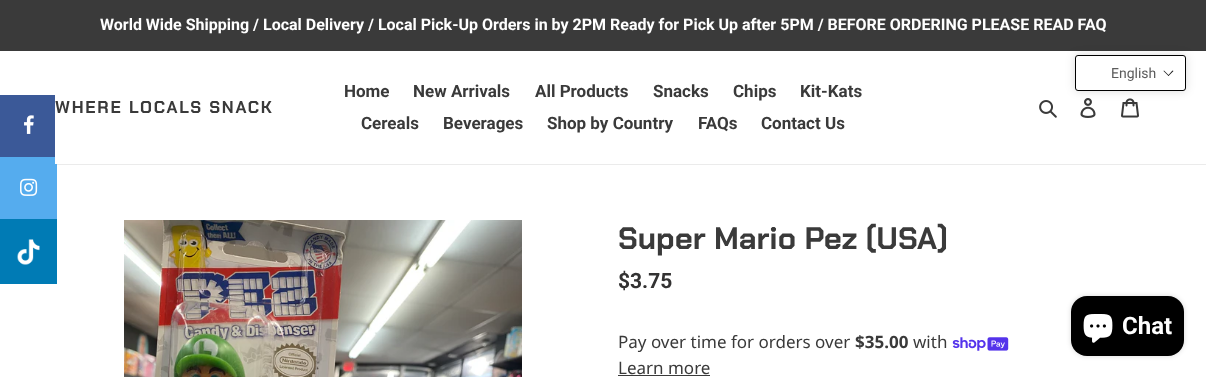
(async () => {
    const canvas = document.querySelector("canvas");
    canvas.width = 1206;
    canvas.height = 377;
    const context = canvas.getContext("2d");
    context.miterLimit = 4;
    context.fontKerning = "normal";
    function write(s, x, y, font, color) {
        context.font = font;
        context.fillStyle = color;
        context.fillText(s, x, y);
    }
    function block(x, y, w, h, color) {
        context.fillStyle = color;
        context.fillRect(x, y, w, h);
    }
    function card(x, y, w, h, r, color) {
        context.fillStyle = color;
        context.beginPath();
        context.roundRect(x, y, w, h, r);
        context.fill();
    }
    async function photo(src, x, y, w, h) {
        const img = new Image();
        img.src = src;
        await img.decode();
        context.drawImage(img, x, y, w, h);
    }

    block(0, 0, 1206, 377, "rgb(255, 255, 255)");
    block(0, 0, 1206, 51, "rgb(58, 58, 58)");
    write("World Wide Shipping / Local Delivery / Local Pick-Up Orders in by 2PM Ready for Pick Up after 5PM / BEFORE ORDERING PLEASE READ FAQ", 100, 30, "bold 16px Roboto", "rgb(255, 255, 255)");
    block(57, 164, 1149, 1, "rgb(235, 235, 235)");
    block(0, 157, 57, 62, "rgb(85, 172, 238)");
    block(55, 157, 2, 7, "rgb(255, 255, 255)");
    context.letterSpacing = "1.75px";
    write("WHERE LOCALS SNACK", 55, 113, "bold 17px Chakra Petch", "rgb(58, 58, 58)");
    context.letterSpacing = "0px";
    write("Home", 344, 97, "bold 17px Roboto", "rgb(58, 58, 58)");
    write("New Arrivals", 413, 97, "bold 17px Roboto", "rgb(58, 58, 58)");
    write("All Products", 535, 97, "bold 17px Roboto", "rgb(58, 58, 58)");
    write("Snacks", 653, 97, "bold 17px Roboto", "rgb(58, 58, 58)");
    write("Chips", 733, 97, "bold 17px Roboto", "rgb(58, 58, 58)");
    write("Kit-Kats", 800, 97, "bold 17px Roboto", "rgb(58, 58, 58)");
    write("Cereals", 361, 129, "bold 17px Roboto", "rgb(58, 58, 58)");
    write("Beverages", 443, 129, "bold 17px Roboto", "rgb(58, 58, 58)");
    write("Shop by Country", 547, 129, "bold 17px Roboto", "rgb(58, 58, 58)");
    write("FAQs", 698, 129, "bold 17px Roboto", "rgb(58, 58, 58)");
    write("Contact Us", 761, 129, "bold 17px Roboto", "rgb(58, 58, 58)");
    await photo("media/1.png", 1039, 100, 18, 18);
    await photo("media/2.png", 1080, 98, 16, 20);
    await photo("media/3.png", 1121, 98, 18, 20);
    context.fillStyle = "rgba(0, 0, 0, 0.15)";
    context.filter = "blur(5px)";
    context.beginPath();
    context.roundRect(1075, 55, 111, 36, 3);
    context.fill();
    context.filter = "none";
    context.fillStyle = "rgb(255, 255, 255)";
    context.beginPath();
    context.roundRect(1075.5, 55.5, 110, 35, 2.5);
    context.fill();
    context.strokeStyle = "rgb(0, 0, 0)";
    context.stroke();
    write("English", 1111, 78, "14px Roboto", "rgb(92, 92, 92)");
    context.fillStyle = "rgb(26, 26, 26)";
    context.beginPath();
    context.moveTo(1172.5, 70.5);
    context.lineTo(1173.5, 71);
    context.lineTo(1168.5, 76);
    context.lineTo(1168, 75.5);
    context.closePath();
    context.fill();
    context.beginPath();
    context.moveTo(1164, 70.5);
    context.lineTo(1169, 75.5);
    context.lineTo(1168.5, 76);
    context.lineTo(1163.5, 71);
    context.closePath();
    context.fill();
    block(0, 95, 55, 62, "rgb(59, 89, 152)");
    await photo("media/4.png", 24, 115, 10, 19);
    await photo("media/5.png", 20, 178, 18, 18);
    block(0, 219, 57, 65, "rgb(0, 123, 181)");
    await photo("media/6.png", 17, 239, 23, 26);
    await photo("media/7.png", 124, 220, 398, 157);
    write("Super Mario Pez (USA)", 618, 249, "bold 31px Chakra Petch", "rgb(58, 58, 58)");
    write("$3.75", 618, 288, "bold 21px Roboto", "rgb(51, 50, 50)");
    write("Pay over time for orders over", 618, 348, "17px Noto Sans", "rgb(58, 58, 58)");
    write("$35.00", 855, 348, "bold 17px Noto Sans", "rgb(58, 58, 58)");
    write("with", 913, 348, "17px Noto Sans", "rgb(58, 58, 58)");
    await photo("media/8.png", 952, 337, 57, 14);
    write("Learn more", 618, 374, "17px Noto Sans", "rgb(58, 58, 58)");
    block(618, 375, 92, 1, "rgb(58, 58, 58)");
    context.fillStyle = "rgba(0, 0, 0, 0.15)";
    context.filter = "blur(2.5px)";
    context.beginPath();
    context.roundRect(1071, 296, 113, 60, 16);
    context.fill();
    context.filter = "none";
    card(1071, 296, 113, 60, 16, "rgb(0, 0, 0)");
    await photo("media/9.png", 1083, 314, 30, 29);
    write("Chat", 1122, 334, "bold 24px Roboto", "rgb(255, 255, 255)");
})();
